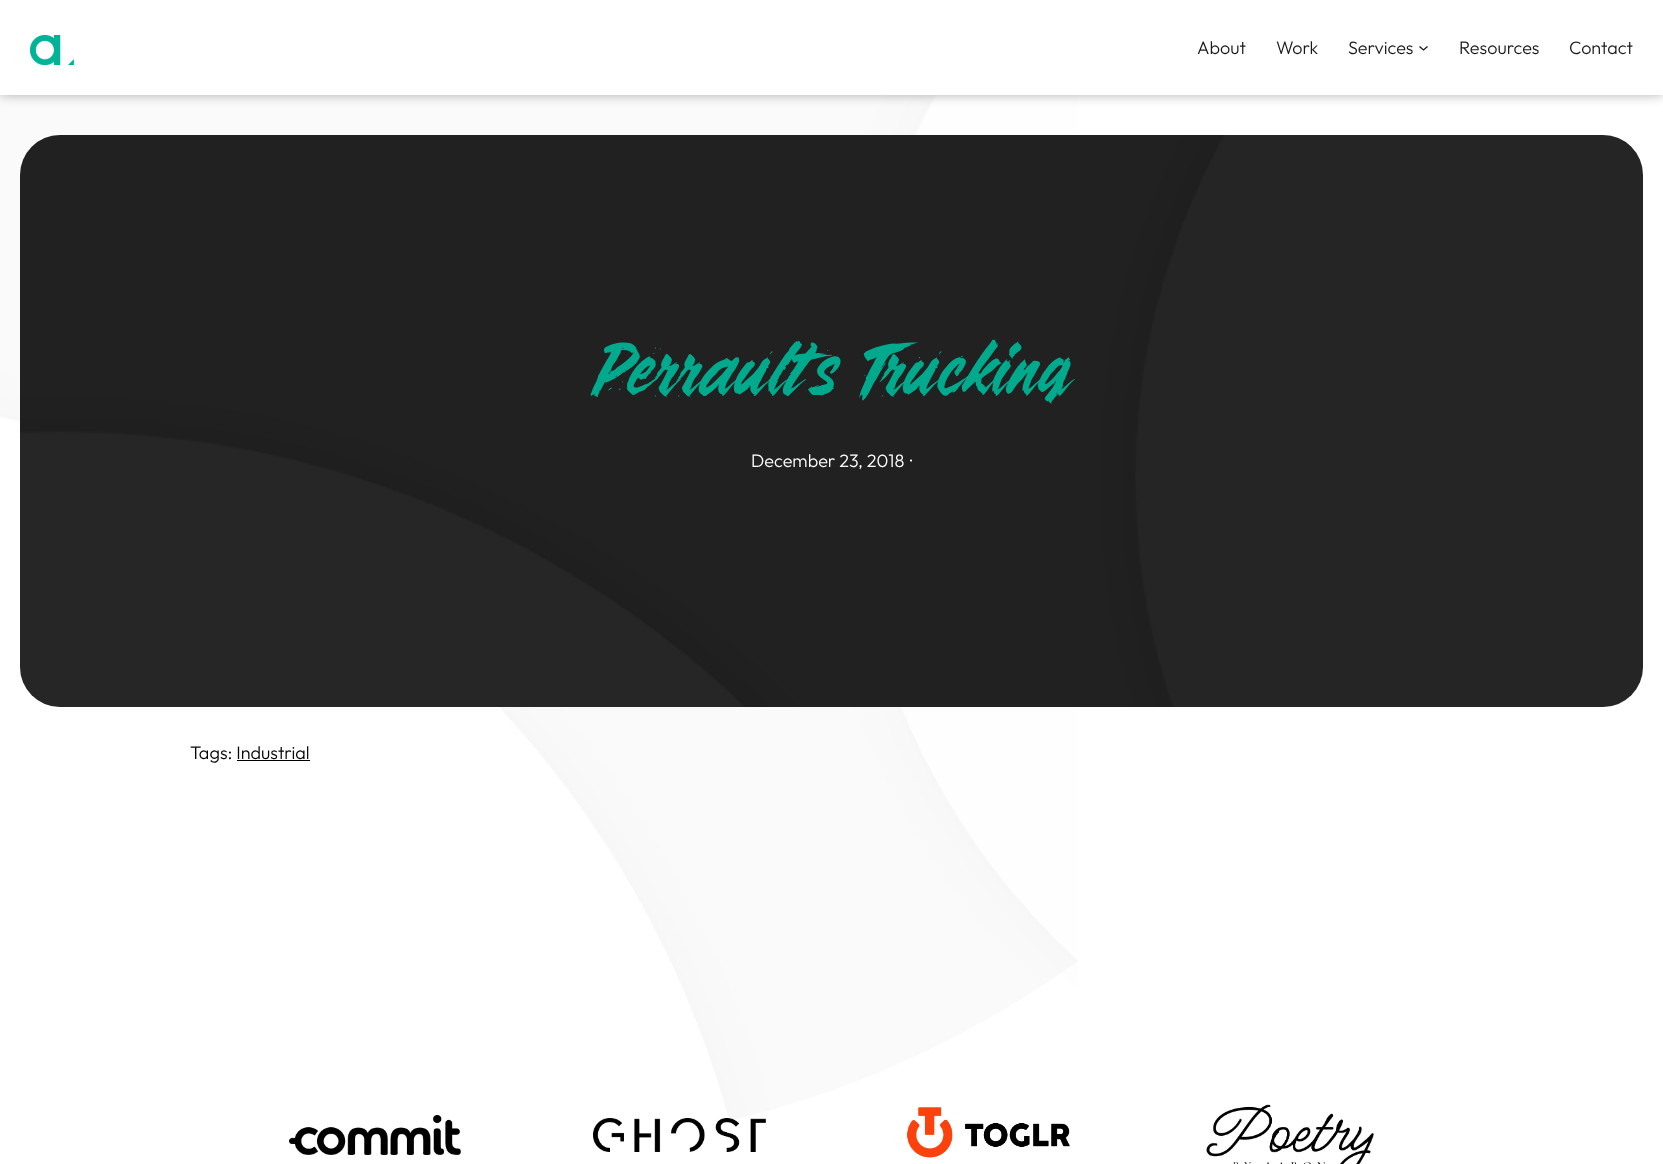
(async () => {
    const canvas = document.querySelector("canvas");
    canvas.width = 1663;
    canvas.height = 1164;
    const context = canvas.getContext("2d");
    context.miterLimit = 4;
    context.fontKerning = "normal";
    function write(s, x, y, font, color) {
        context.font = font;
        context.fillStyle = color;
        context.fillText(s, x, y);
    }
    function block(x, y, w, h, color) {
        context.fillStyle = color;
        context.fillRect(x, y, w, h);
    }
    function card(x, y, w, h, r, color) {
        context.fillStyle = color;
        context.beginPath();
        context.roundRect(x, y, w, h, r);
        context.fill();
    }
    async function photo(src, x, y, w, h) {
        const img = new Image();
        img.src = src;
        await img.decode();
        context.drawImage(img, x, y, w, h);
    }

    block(0, 0, 1663, 1164, "rgb(255, 255, 255)");
    await photo("media/1.png", 0, 95, 1078, 1026);
    context.fillStyle = "rgba(0, 0, 0, 0.3)";
    context.filter = "blur(6px)";
    context.beginPath();
    context.rect(0, 0, 1663, 95);
    context.fill();
    context.filter = "none";
    block(0, 0, 1663, 95, "rgb(255, 255, 255)");
    await photo("media/2.png", 30, 35, 44, 30);
    write("About", 1197, 54, "300 18px Outfit", "rgb(28, 23, 23)");
    write("Work", 1276, 54, "300 18px Outfit", "rgb(28, 23, 23)");
    write("Services", 1348, 54, "300 18px Outfit", "rgb(28, 23, 23)");
    context.beginPath();
    context.moveTo(1419.5, 46.5);
    context.lineTo(1423.5, 50);
    context.lineTo(1427.5, 46.5);
    context.strokeStyle = "rgb(28, 23, 23)";
    context.lineWidth = 1.3;
    context.stroke();
    write("Resources", 1459, 54, "300 18px Outfit", "rgb(28, 23, 23)");
    write("Contact", 1569, 54, "300 18px Outfit", "rgb(28, 23, 23)");
    card(20, 135, 1623, 572, 40, "rgb(0, 0, 0)");
    await photo("media/3.png", 20, 135, 1623, 572);
    write("Perrault’s Trucking", 591, 393, "72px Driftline", "rgb(1, 169, 141)");
    write("December 23, 2018", 751, 467, "300 18px Outfit", "rgb(255, 255, 255)");
    write("·", 910, 467, "300 18px Outfit", "rgb(255, 255, 255)");
    write("Tags: Industrial", 190, 759, "300 18px Outfit", "rgb(0, 0, 0)");
    block(237, 760, 73, 1, "rgb(0, 0, 0)");
    await photo("media/4.png", 289, 1115, 172, 40);
    await photo("media/5.png", 593, 1118, 173, 34);
    await photo("media/6.png", 907, 1107, 163, 51);
    await photo("media/7.png", 1206, 1104, 168, 60);
})();
